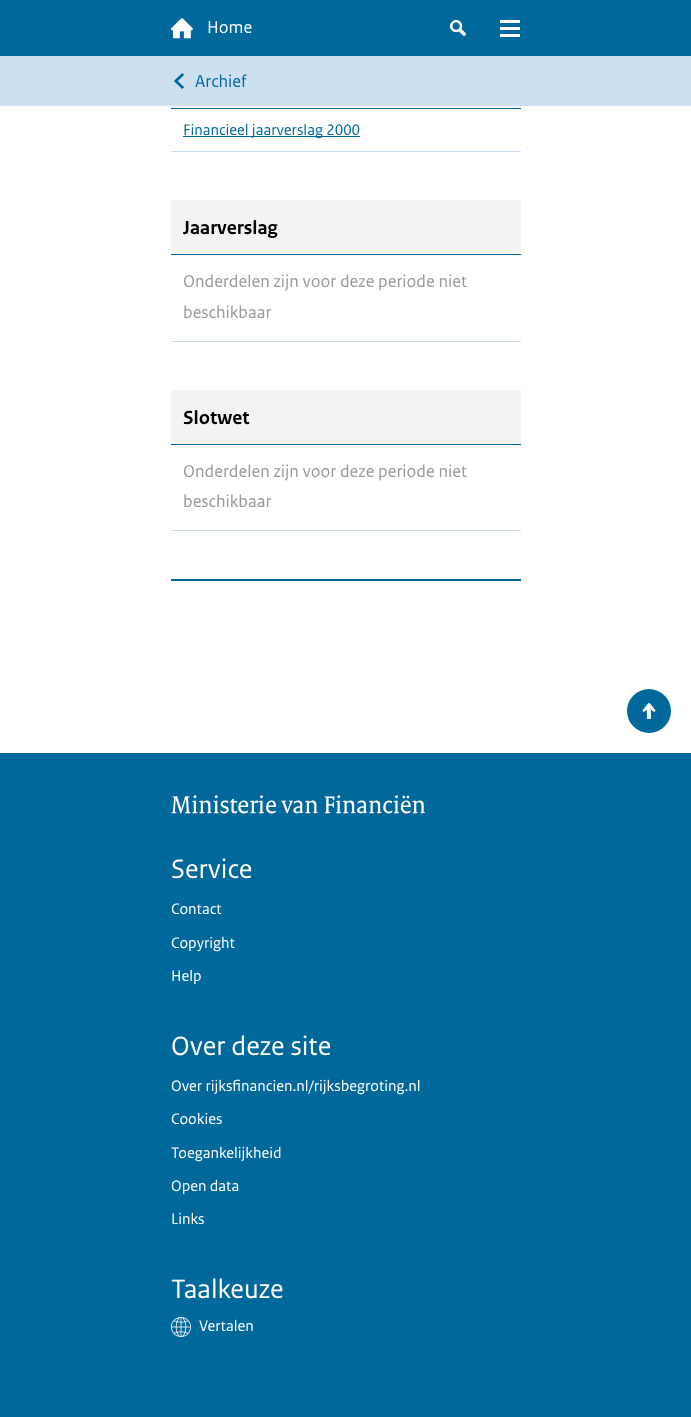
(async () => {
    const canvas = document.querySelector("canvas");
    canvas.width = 691;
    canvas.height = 1417;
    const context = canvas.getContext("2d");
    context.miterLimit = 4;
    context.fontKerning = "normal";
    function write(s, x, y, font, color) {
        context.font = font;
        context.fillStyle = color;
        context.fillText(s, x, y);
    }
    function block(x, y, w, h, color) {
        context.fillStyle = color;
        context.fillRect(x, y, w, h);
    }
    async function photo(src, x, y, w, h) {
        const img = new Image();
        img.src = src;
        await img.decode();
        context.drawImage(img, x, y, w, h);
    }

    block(0, 0, 691, 1417, "rgb(255, 255, 255)");
    block(0, 0, 691, 56, "rgb(1, 104, 155)");
    await photo("media/1.png", 171, 18, 22, 21);
    write("Home", 207, 33, "18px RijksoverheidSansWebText", "rgb(255, 255, 255)");
    await photo("media/2.png", 450, 20, 16, 16);
    block(500, 20, 20, 3, "rgb(255, 255, 255)");
    block(500, 27, 20, 3, "rgb(255, 255, 255)");
    block(500, 34, 20, 3, "rgb(255, 255, 255)");
    block(0, 56, 691, 50, "rgb(204, 224, 241)");
    await photo("media/3.png", 174, 73, 11, 16);
    write("Archief", 195, 87, "18px RijksoverheidSansWebText", "rgb(1, 104, 155)");
    block(171, 579, 350, 2, "rgb(1, 104, 155)");
    block(171, 106, 350, 2, "rgb(243, 243, 243)");
    block(171, 108, 350, 1, "rgb(1, 104, 155)");
    block(171, 151, 350, 1, "rgb(204, 224, 241)");
    block(183, 136, 177, 1, "rgb(1, 104, 155)");
    write("Financieel jaarverslag 2000", 183, 135, "16px RijksoverheidSansWebText", "rgb(1, 104, 155)");
    block(171, 200, 350, 54, "rgb(243, 243, 243)");
    block(171, 254, 350, 1, "rgb(1, 104, 155)");
    write("Jaarverslag", 183, 234, "bold 20px RijksoverheidSansWebText", "rgb(0, 0, 0)");
    block(171, 341, 350, 1, "rgb(204, 224, 241)");
    write("Onderdelen zijn voor deze periode niet", 183, 287, "18px RijksoverheidSansWebText", "rgb(153, 153, 153)");
    write("beschikbaar", 183, 318, "18px RijksoverheidSansWebText", "rgb(153, 153, 153)");
    block(171, 390, 350, 54, "rgb(243, 243, 243)");
    block(171, 444, 350, 1, "rgb(1, 104, 155)");
    write("Slotwet", 183, 424, "bold 20px RijksoverheidSansWebText", "rgb(0, 0, 0)");
    block(171, 530, 350, 1, "rgb(204, 224, 241)");
    write("Onderdelen zijn voor deze periode niet", 183, 477, "18px RijksoverheidSansWebText", "rgb(153, 153, 153)");
    write("beschikbaar", 183, 507, "18px RijksoverheidSansWebText", "rgb(153, 153, 153)");
    context.fillStyle = "rgb(1, 104, 155)";
    context.beginPath();
    context.arc(649, 711, 22, 0, Math.PI * 2);
    context.fill();
    await photo("media/4.png", 642, 703, 14, 16);
    block(0, 753, 691, 664, "rgb(1, 104, 155)");
    write("Ministerie van Financiën", 171, 813, "26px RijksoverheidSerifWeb", "rgb(255, 255, 255)");
    write("Service", 171, 878, "28px RijksoverheidSansWebText", "rgb(255, 255, 255)");
    write("Contact", 171, 914, "16px RijksoverheidSansWebText", "rgb(255, 255, 255)");
    write("Copyright", 171, 948, "16px RijksoverheidSansWebText", "rgb(255, 255, 255)");
    write("Help", 171, 981, "16px RijksoverheidSansWebText", "rgb(255, 255, 255)");
    write("Over deze site", 171, 1055, "28px RijksoverheidSansWebText", "rgb(255, 255, 255)");
    write("Over rijksfinancien.nl/rijksbegroting.nl", 171, 1091, "16px RijksoverheidSansWebText", "rgb(255, 255, 255)");
    write("Cookies", 171, 1124, "16px RijksoverheidSansWebText", "rgb(255, 255, 255)");
    write("Toegankelijkheid", 171, 1158, "16px RijksoverheidSansWebText", "rgb(255, 255, 255)");
    write("Open data", 171, 1191, "16px RijksoverheidSansWebText", "rgb(255, 255, 255)");
    write("Links", 171, 1224, "16px RijksoverheidSansWebText", "rgb(255, 255, 255)");
    write("Taalkeuze", 171, 1298, "28px RijksoverheidSansWebText", "rgb(255, 255, 255)");
    await photo("media/5.png", 171, 1317, 20, 20);
    write("Vertalen", 199, 1331, "16px RijksoverheidSansWebText", "rgb(255, 255, 255)");
})();
